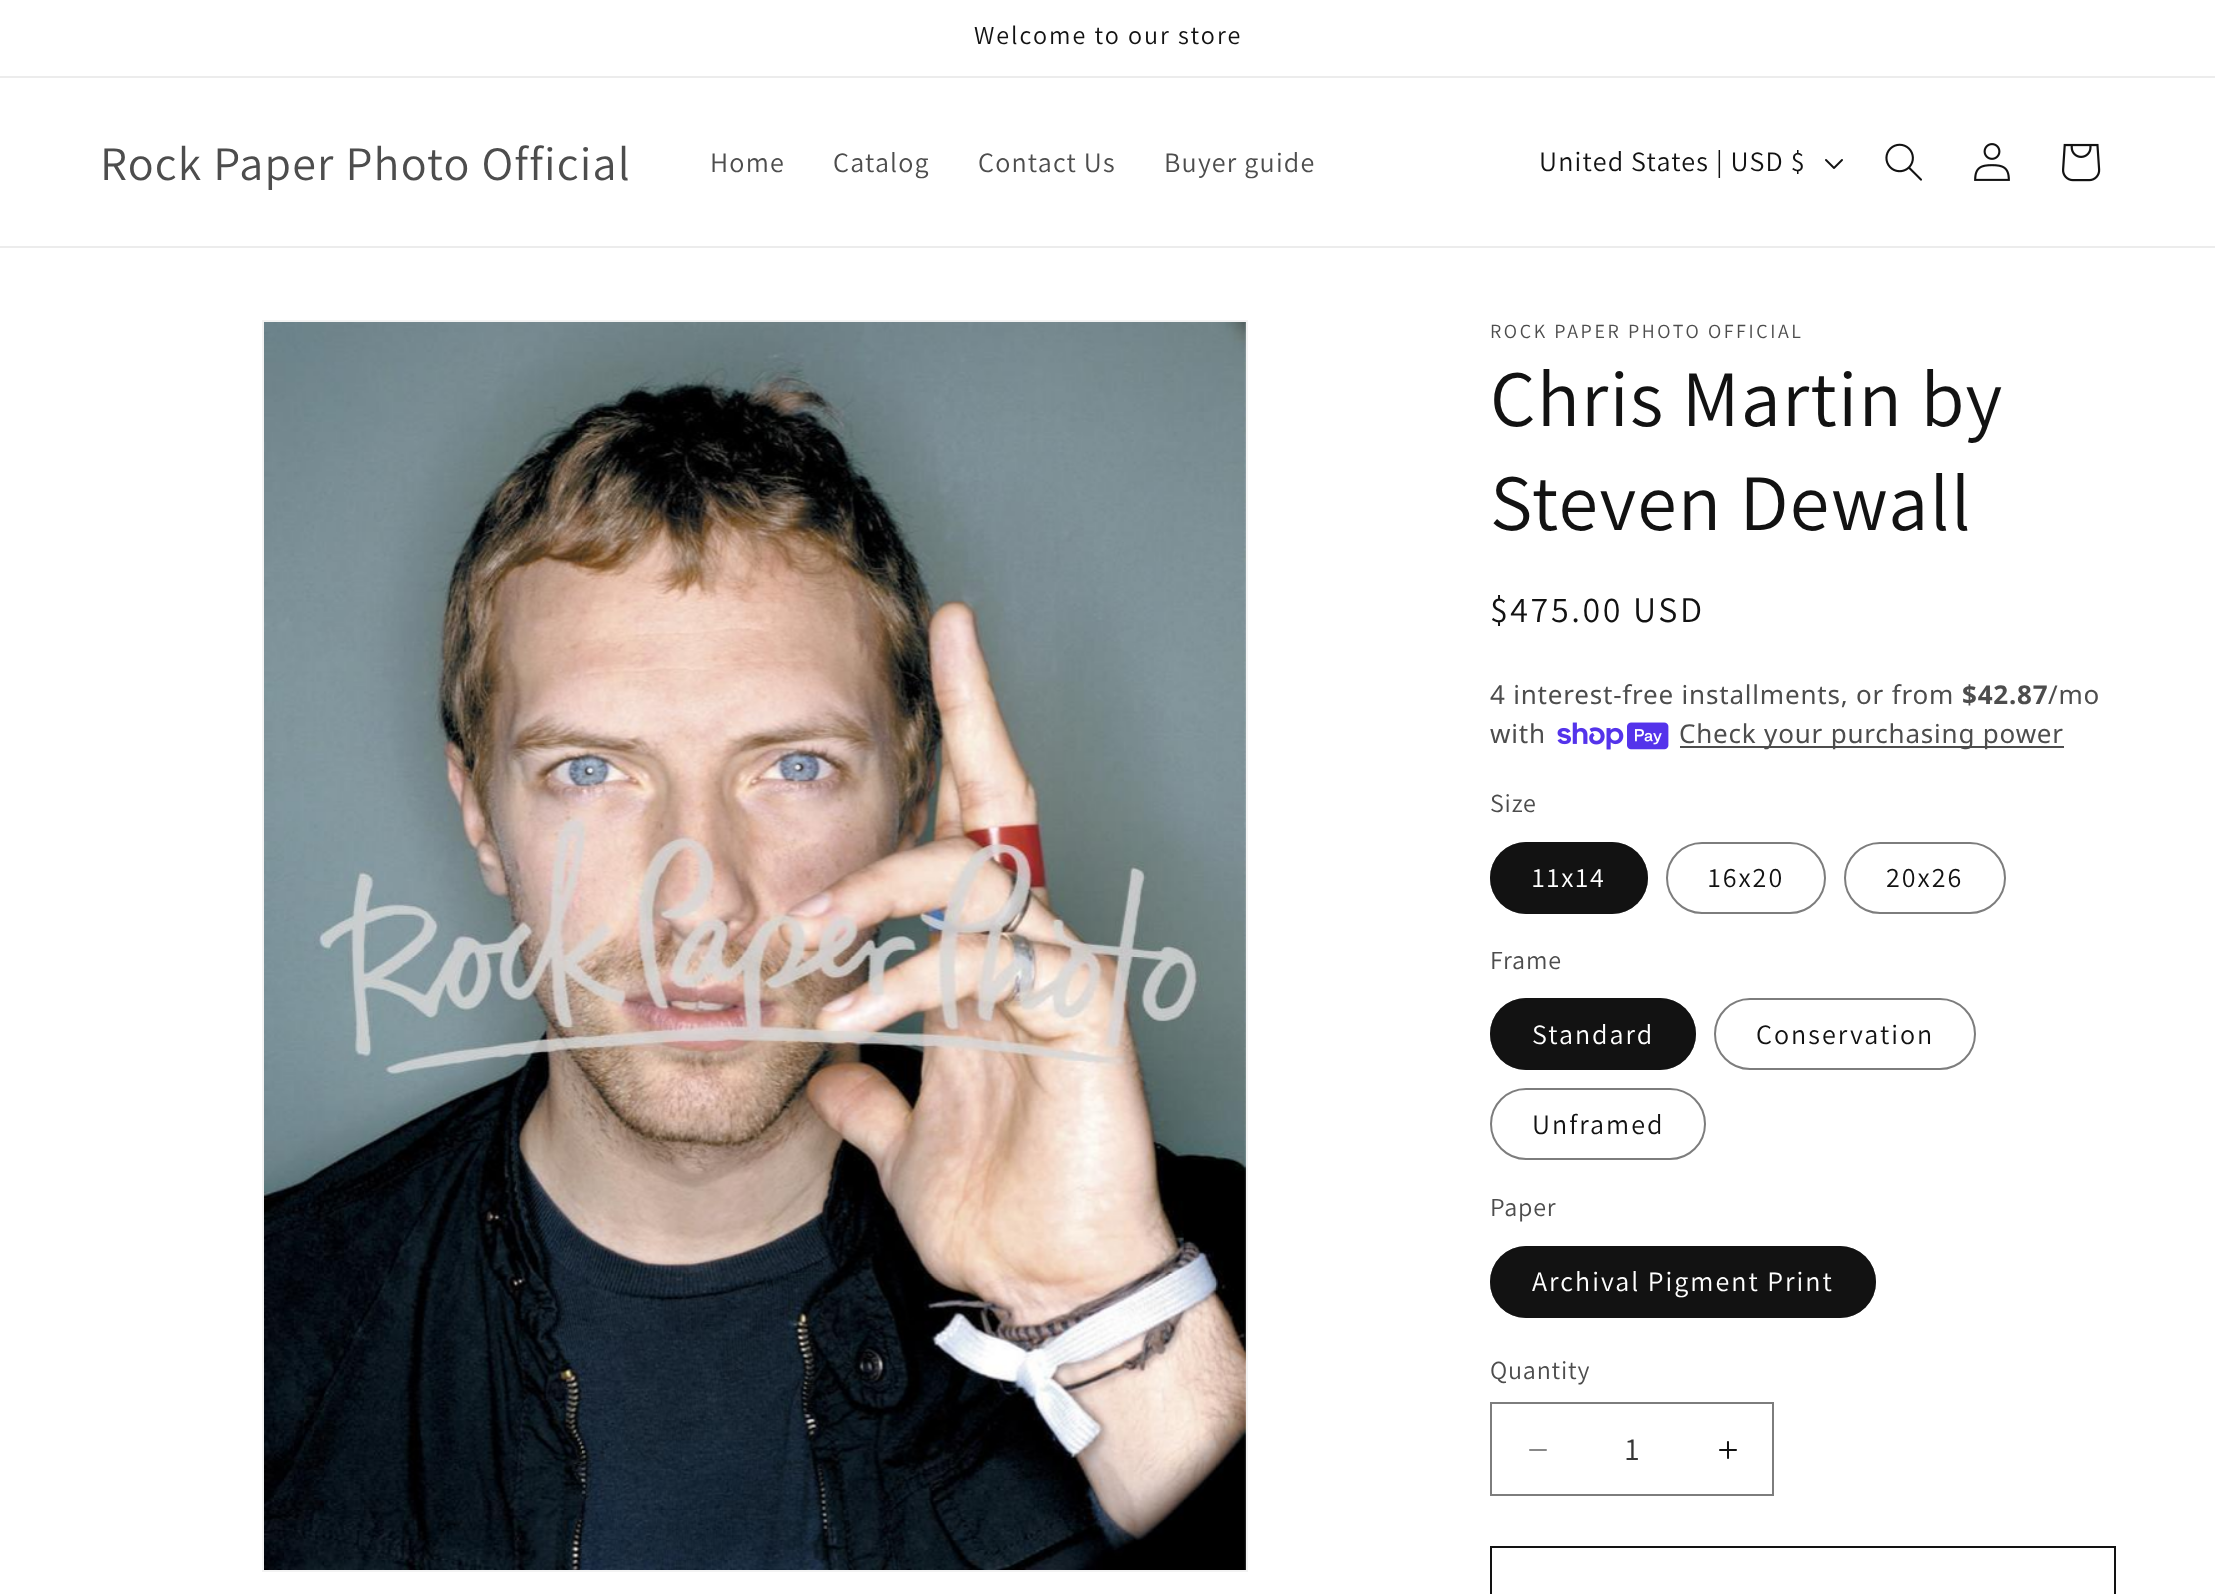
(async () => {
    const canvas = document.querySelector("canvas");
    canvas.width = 2215;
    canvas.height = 1594;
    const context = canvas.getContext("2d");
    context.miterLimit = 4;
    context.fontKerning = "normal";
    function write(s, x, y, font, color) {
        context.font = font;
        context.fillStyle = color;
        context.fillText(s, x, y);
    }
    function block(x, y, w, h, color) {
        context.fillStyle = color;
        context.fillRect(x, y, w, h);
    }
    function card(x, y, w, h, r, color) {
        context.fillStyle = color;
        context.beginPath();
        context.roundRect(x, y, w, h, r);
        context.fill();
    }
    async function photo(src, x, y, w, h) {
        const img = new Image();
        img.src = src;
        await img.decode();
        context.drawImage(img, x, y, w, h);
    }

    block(0, 0, 2215, 1594, "rgb(255, 255, 255)");
    block(0, 76, 2215, 2, "rgb(236, 236, 236)");
    context.letterSpacing = "2px";
    write("Welcome to our store", 974, 44, "26px Assistant", "rgb(18, 18, 18)");
    block(0, 246, 2215, 2, "rgb(236, 236, 236)");
    context.letterSpacing = "1.2px";
    write("Rock Paper Photo Official", 100, 180, "48px Assistant", "rgb(77, 77, 77)");
    write("Home", 710, 172, "28px Assistant", "rgb(77, 77, 77)");
    write("Catalog", 833, 172, "28px Assistant", "rgb(77, 77, 77)");
    write("Contact Us", 978, 172, "28px Assistant", "rgb(77, 77, 77)");
    write("Buyer guide", 1164, 172, "28px Assistant", "rgb(77, 77, 77)");
    write("United States | USD $", 1539, 171, "28px Assistant", "rgb(18, 18, 18)");
    await photo("media/1.png", 1825, 159, 18, 10);
    await photo("media/2.png", 1885, 143, 37, 38);
    await photo("media/3.png", 1974, 143, 36, 38);
    await photo("media/4.png", 2062, 143, 39, 39);
    context.strokeStyle = "rgb(243, 243, 243)";
    context.lineWidth = 2;
    context.strokeRect(263, 321, 984, 1250);
    await photo("media/5.png", 264, 322, 982, 1248);
    context.letterSpacing = "2.6px";
    write("ROCK PAPER PHOTO OFFICIAL", 1490, 338, "20px Assistant", "rgb(77, 77, 77)");
    context.letterSpacing = "1.2px";
    write("Chris Martin by", 1490, 426, "80px Assistant", "rgb(18, 18, 18)");
    write("Steven Dewall", 1490, 530, "80px Assistant", "rgb(18, 18, 18)");
    context.letterSpacing = "2.6px";
    write("$475.00 USD", 1490, 622, "36px Assistant", "rgb(18, 18, 18)");
    context.letterSpacing = "0.8px";
    write("4 interest-free installments, or from", 1490, 704, "26px Noto Sans", "rgb(77, 77, 77)");
    write("$42.87", 1962, 704, "bold 26px Noto Sans", "rgb(77, 77, 77)");
    write("/mo", 2048, 704, "26px Noto Sans", "rgb(77, 77, 77)");
    write("with", 1490, 743, "26px Noto Sans", "rgb(77, 77, 77)");
    await photo("media/6.png", 1557, 722, 112, 28);
    block(1680, 746, 384, 2, "rgb(77, 77, 77)");
    write("Check your purchasing power", 1679, 743, "26px Noto Sans", "rgb(77, 77, 77)");
    write("Size", 1490, 812, "26px Assistant", "rgb(77, 77, 77)");
    card(1490, 842, 158, 72, 36, "rgb(18, 18, 18)");
    context.beginPath();
    context.roundRect(1491, 843, 156, 70, 35);
    context.strokeStyle = "rgba(18, 18, 18, 0.55)";
    context.stroke();
    context.letterSpacing = "2px";
    write("11x14", 1532, 887, "28px Assistant", "rgb(255, 255, 255)");
    context.beginPath();
    context.roundRect(1667, 843, 158, 70, 35);
    context.strokeStyle = "rgb(125, 125, 125)";
    context.stroke();
    write("16x20", 1708, 887, "28px Assistant", "rgb(18, 18, 18)");
    context.beginPath();
    context.roundRect(1845, 843, 160, 70, 35);
    context.stroke();
    write("20x26", 1886, 887, "28px Assistant", "rgb(18, 18, 18)");
    context.letterSpacing = "0.8px";
    write("Frame", 1490, 969, "26px Assistant", "rgb(77, 77, 77)");
    card(1490, 998, 206, 72, 36, "rgb(18, 18, 18)");
    context.beginPath();
    context.roundRect(1491, 999, 204, 70, 35);
    context.strokeStyle = "rgba(18, 18, 18, 0.55)";
    context.stroke();
    context.letterSpacing = "2px";
    write("Standard", 1532, 1044, "28px Assistant", "rgb(255, 255, 255)");
    context.beginPath();
    context.roundRect(1715, 999, 260, 70, 35);
    context.strokeStyle = "rgb(125, 125, 125)";
    context.stroke();
    write("Conservation", 1756, 1044, "28px Assistant", "rgb(18, 18, 18)");
    context.beginPath();
    context.roundRect(1491, 1089, 214, 70, 35);
    context.stroke();
    write("Unframed", 1532, 1134, "28px Assistant", "rgb(18, 18, 18)");
    context.letterSpacing = "0.8px";
    write("Paper", 1490, 1216, "26px Assistant", "rgb(77, 77, 77)");
    card(1490, 1246, 386, 72, 36, "rgb(18, 18, 18)");
    context.beginPath();
    context.roundRect(1491, 1247, 384, 70, 35);
    context.strokeStyle = "rgba(18, 18, 18, 0.55)";
    context.stroke();
    context.letterSpacing = "2px";
    write("Archival Pigment Print", 1532, 1291, "28px Assistant", "rgb(255, 255, 255)");
    context.letterSpacing = "0.8px";
    write("Quantity", 1490, 1379, "26px Assistant", "rgb(77, 77, 77)");
    await photo("media/7.png", 1529, 1449, 18, 2);
    await photo("media/8.png", 1719, 1441, 18, 18);
    context.strokeStyle = "rgb(125, 125, 125)";
    context.strokeRect(1491, 1403, 282, 92);
    context.letterSpacing = "0px";
    write("1", 1625, 1460, "32px Assistant", "rgb(54, 54, 54)");
    context.strokeStyle = "rgb(18, 18, 18)";
    context.strokeRect(1491, 1547, 624, 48);
})();
